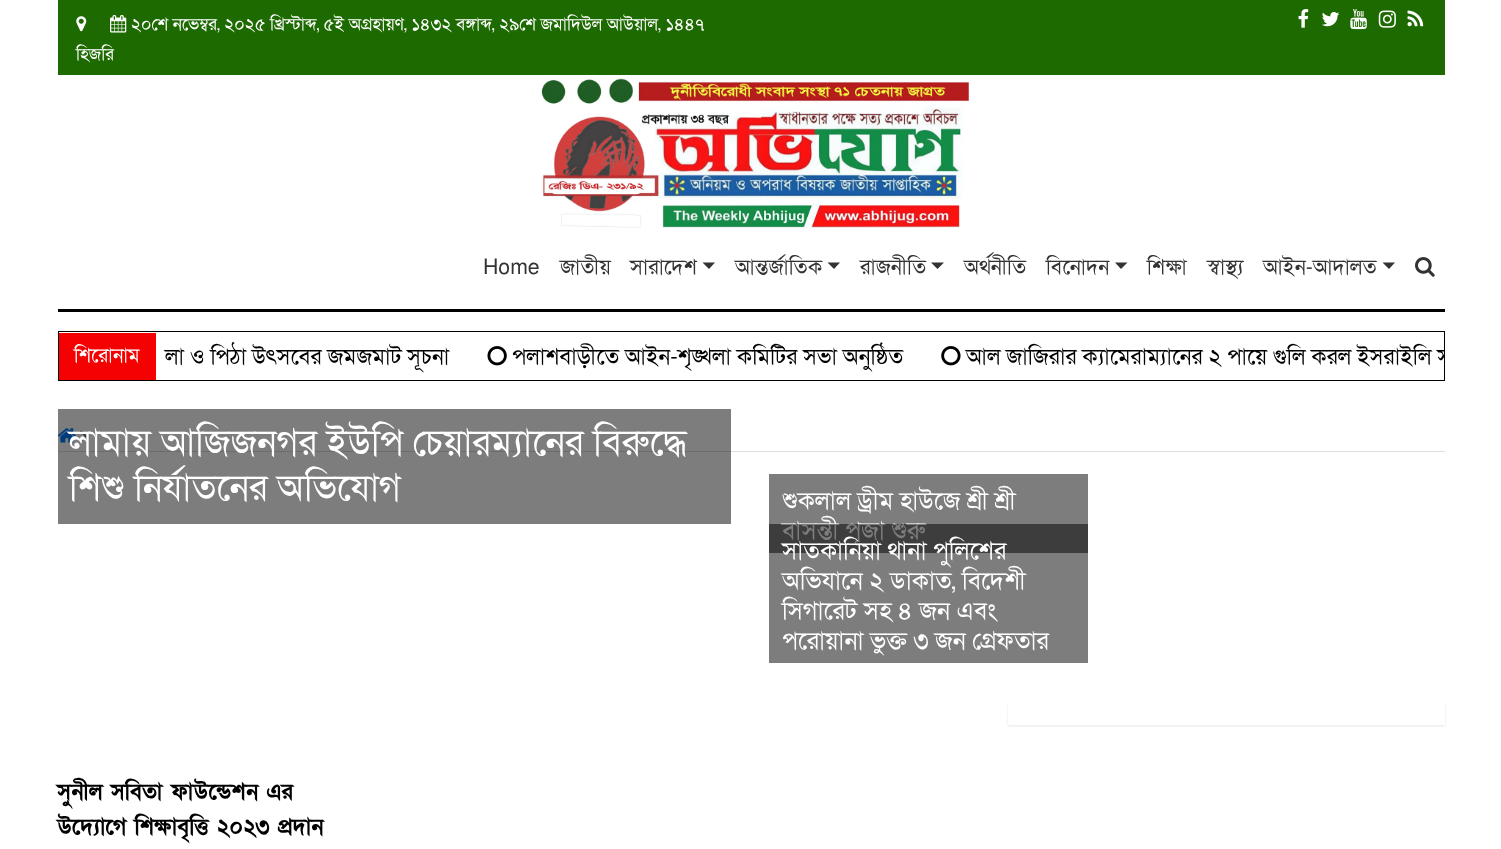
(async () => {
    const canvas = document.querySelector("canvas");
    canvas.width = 1501;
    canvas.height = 849;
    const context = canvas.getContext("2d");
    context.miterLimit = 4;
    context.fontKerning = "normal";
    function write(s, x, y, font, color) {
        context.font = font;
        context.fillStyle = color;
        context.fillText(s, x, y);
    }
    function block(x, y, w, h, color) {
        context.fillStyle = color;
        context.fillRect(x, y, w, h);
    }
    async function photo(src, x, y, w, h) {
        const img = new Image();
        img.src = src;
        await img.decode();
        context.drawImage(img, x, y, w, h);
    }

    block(0, 0, 1501, 849, "rgb(255, 255, 255)");
    block(58, 409, 673, 115, "rgb(125, 125, 125)");
    block(58, 0, 1387, 75, "rgb(29, 106, 1)");
    await photo("media/1.png", 76, 16, 11, 16);
    await photo("media/2.png", 110, 15, 17, 18);
    write("২০শে নভেম্বর, ২০২৫ খ্রিস্টাব্দ, ৫ই অগ্রহায়ণ, ১৪৩২ বঙ্গাব্দ, ২৯শে জমাদিউল আউয়াল, ১৪৪৭", 131, 30, "17.5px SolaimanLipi", "rgb(255, 255, 255)");
    write("হিজরি", 76, 60, "17.5px SolaimanLipi", "rgb(255, 255, 255)");
    await photo("media/3.png", 1298, 9, 11, 19);
    await photo("media/4.png", 1322, 12, 18, 15);
    await photo("media/5.png", 1350, 9, 17, 21);
    await photo("media/6.png", 1378, 10, 18, 18);
    await photo("media/7.png", 1407, 10, 17, 17);
    await photo("media/8.png", 541, 78, 428, 150);
    block(58, 309, 1387, 3, "rgb(0, 0, 0)");
    write("Home", 483, 274, "21.25px SolaimanLipi", "rgb(51, 51, 51)");
    write("জাতীয়", 560, 274, "21.25px SolaimanLipi", "rgb(51, 51, 51)");
    write("সারাদেশ", 630, 274, "21.25px SolaimanLipi", "rgb(51, 51, 51)");
    context.beginPath();
    context.moveTo(702.5, 262.5);
    context.lineTo(715, 262.5);
    context.lineTo(709, 269);
    context.closePath();
    context.fill();
    write("আন্তর্জাতিক", 735, 274, "21.25px SolaimanLipi", "rgb(51, 51, 51)");
    context.beginPath();
    context.moveTo(827.5, 262.5);
    context.lineTo(840, 262.5);
    context.lineTo(834, 269);
    context.closePath();
    context.fill();
    write("রাজনীতি", 860, 274, "21.25px SolaimanLipi", "rgb(51, 51, 51)");
    context.beginPath();
    context.moveTo(931, 262.5);
    context.lineTo(944, 262.5);
    context.lineTo(937.5, 269);
    context.closePath();
    context.fill();
    write("অর্থনীতি", 964, 274, "21.25px SolaimanLipi", "rgb(51, 51, 51)");
    write("বিনোদন", 1046, 274, "21.25px SolaimanLipi", "rgb(51, 51, 51)");
    context.beginPath();
    context.moveTo(1115, 262.5);
    context.lineTo(1127.5, 262.5);
    context.lineTo(1121, 269);
    context.closePath();
    context.fill();
    write("শিক্ষা", 1147, 274, "21.25px SolaimanLipi", "rgb(51, 51, 51)");
    write("স্বাস্থ্য", 1207, 274, "21.25px SolaimanLipi", "rgb(51, 51, 51)");
    write("আইন-আদালত", 1263, 274, "21.25px SolaimanLipi", "rgb(51, 51, 51)");
    context.beginPath();
    context.moveTo(1382.5, 262.5);
    context.lineTo(1395, 262.5);
    context.lineTo(1389, 269);
    context.closePath();
    context.fill();
    await photo("media/9.png", 1415, 257, 20, 20);
    context.strokeStyle = "rgb(0, 0, 0)";
    context.strokeRect(58.5, 331.5, 1386, 49);
    block(59, 333, 97, 47, "rgb(244, 1, 1)");
    write("শিরোনাম", 74, 362, "20px SolaimanLipi", "rgb(255, 255, 255)");
    write("লা ও পিঠা উৎসবের জমজমাট সূচনা", 165, 364, "22.5px SolaimanLipi", "rgb(0, 0, 0)");
    await photo("media/10.png", 487, 346, 20, 20);
    write("পলাশবাড়ীতে আইন-শৃঙ্খলা কমিটির সভা অনুষ্ঠিত", 512, 364, "22.5px SolaimanLipi", "rgb(0, 0, 0)");
    await photo("media/11.png", 941, 346, 20, 20);
    context.save();
    context.beginPath();
    context.rect(159, 339, 1285, 37);
    context.clip();
    write("আল জাজিরার ক্যামেরাম্যানের ২ পায়ে গুলি করল ইসরাইলি স", 966, 364, "22.5px SolaimanLipi", "rgb(0, 0, 0)");
    context.restore();
    block(58, 451, 673, 1, "rgb(108, 108, 108)");
    await photo("media/12.png", 57, 428, 19, 15);
    await photo("media/13.png", 80, 430, 7, 12);
    write("লামায় আজিজনগর ইউপি চেয়ারম্যানের বিরুদ্ধে", 69, 455, "37.5px SolaimanLipi", "rgb(255, 255, 255)");
    write("শিশু নির্যাতনের অভিযোগ", 69, 500, "37.5px SolaimanLipi", "rgb(255, 255, 255)");
    block(769, 474, 319, 79, "rgb(125, 125, 125)");
    write("শুকলাল ড্রীম হাউজে শ্রী শ্রী", 782, 509, "25px SolaimanLipi", "rgb(255, 255, 255)");
    write("বাসন্তী পূজা শুরু", 782, 539, "25px SolaimanLipi", "rgb(255, 255, 255)");
    block(769, 524, 319, 139, "rgba(0, 0, 0, 0.51)");
    write("সাতকানিয়া থানা পুলিশের", 782, 559, "25px SolaimanLipi", "rgb(255, 255, 255)");
    write("অভিযানে ২ ডাকাত, বিদেশী", 782, 589, "25px SolaimanLipi", "rgb(255, 255, 255)");
    write("সিগারেট সহ ৪ জন এবং", 782, 619, "25px SolaimanLipi", "rgb(255, 255, 255)");
    write("পরোয়ানা ভুক্ত ৩ জন গ্রেফতার", 782, 649, "25px SolaimanLipi", "rgb(255, 255, 255)");
    block(731, 451, 714, 1, "rgb(221, 221, 221)");
    context.save();
    context.beginPath();
    context.moveTo(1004, 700);
    context.lineTo(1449, 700);
    context.lineTo(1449, 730);
    context.lineTo(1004, 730);
    context.closePath();
    context.moveTo(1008, 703);
    context.lineTo(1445, 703);
    context.lineTo(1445, 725);
    context.lineTo(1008, 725);
    context.closePath();
    context.clip("evenodd");
    context.fillStyle = "rgba(0, 0, 0, 0.1)";
    context.filter = "blur(1px)";
    context.beginPath();
    context.rect(1008, 704, 437, 22);
    context.fill();
    context.filter = "none";
    context.restore();
    write("সুনীল সবিতা ফাউন্ডেশন এর", 57, 799, "bold 22.5px SolaimanLipi", "rgb(0, 0, 0)");
    write("উদ্যোগে শিক্ষাবৃত্তি ২০২৩ প্রদান", 57, 834, "bold 22.5px SolaimanLipi", "rgb(0, 0, 0)");
})();
